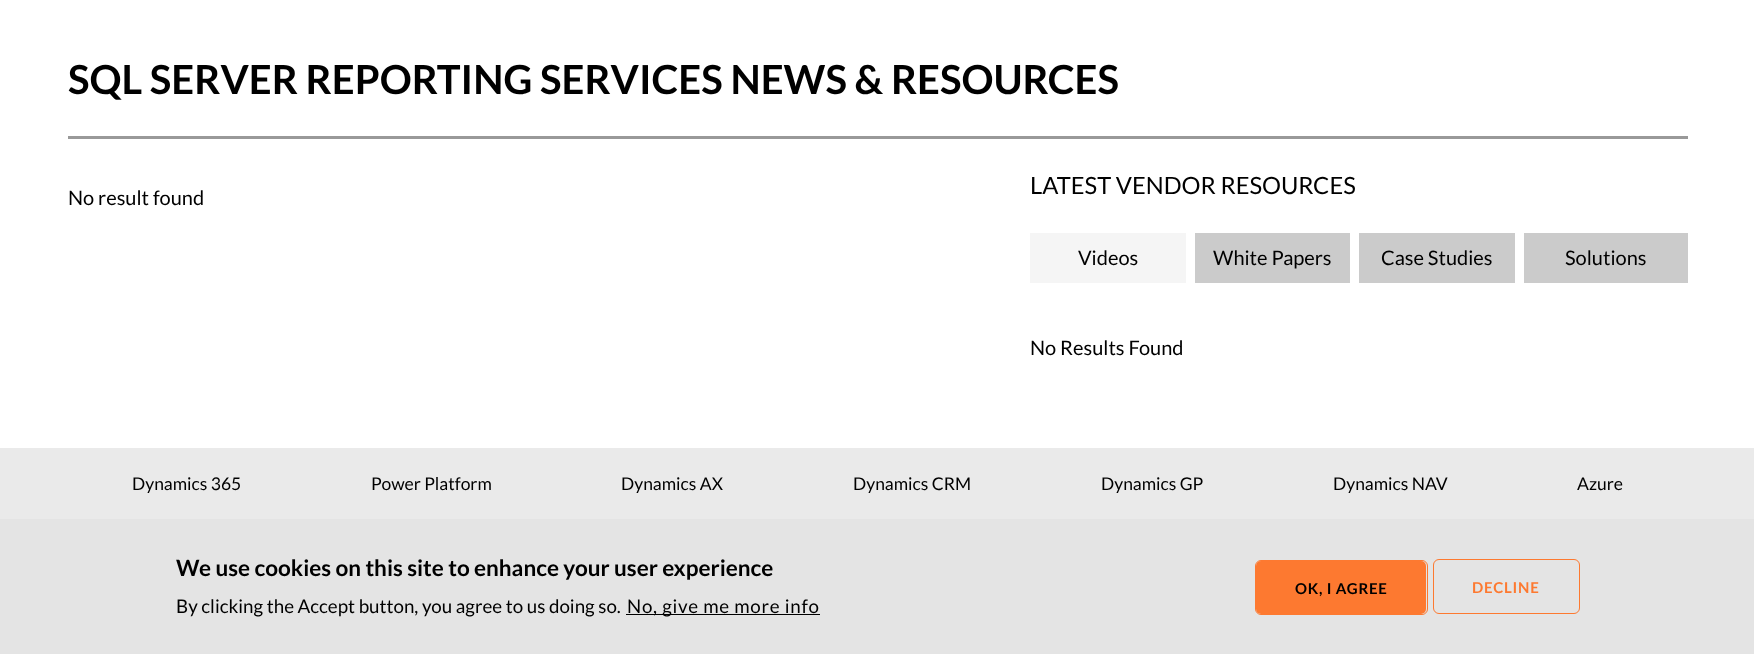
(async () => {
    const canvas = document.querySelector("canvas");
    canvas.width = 1754;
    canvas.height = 654;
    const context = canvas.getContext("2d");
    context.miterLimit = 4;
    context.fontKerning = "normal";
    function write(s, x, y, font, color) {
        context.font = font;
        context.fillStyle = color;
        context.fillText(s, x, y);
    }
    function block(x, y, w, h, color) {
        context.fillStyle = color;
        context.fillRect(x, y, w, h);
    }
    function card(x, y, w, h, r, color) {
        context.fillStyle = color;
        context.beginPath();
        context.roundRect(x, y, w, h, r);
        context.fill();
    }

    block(0, 0, 1754, 654, "rgb(255, 255, 255)");
    write("SQL SERVER REPORTING SERVICES NEWS & RESOURCES", 68, 94, "bold 40px Lato", "rgb(0, 0, 0)");
    block(68, 136, 1620, 3, "rgb(153, 153, 153)");
    write("No result found", 68, 205, "20px Lato", "rgb(0, 0, 0)");
    write("LATEST VENDOR RESOURCES", 1030, 194, "23.75px Lato", "rgb(0, 0, 0)");
    block(1030, 233, 156, 50, "rgb(245, 245, 245)");
    write("Videos", 1078, 265, "20px Lato", "rgb(0, 0, 0)");
    block(1195, 233, 155, 50, "rgb(203, 203, 203)");
    write("White Papers", 1213, 265, "20px Lato", "rgb(0, 0, 0)");
    block(1359, 233, 156, 50, "rgb(203, 203, 203)");
    write("Case Studies", 1381, 265, "20px Lato", "rgb(0, 0, 0)");
    block(1524, 233, 164, 50, "rgb(203, 203, 203)");
    write("Solutions", 1565, 265, "20px Lato", "rgb(0, 0, 0)");
    write("No Results Found", 1030, 355, "20px Lato", "rgb(0, 0, 0)");
    block(0, 448, 1754, 71, "rgb(234, 234, 234)");
    write("Dynamics 365", 132, 490, "17.5px Lato", "rgb(0, 0, 0)");
    write("Power Platform", 371, 490, "17.5px Lato", "rgb(0, 0, 0)");
    write("Dynamics AX", 621, 490, "17.5px Lato", "rgb(0, 0, 0)");
    write("Dynamics CRM", 853, 490, "17.5px Lato", "rgb(0, 0, 0)");
    write("Dynamics GP", 1101, 490, "17.5px Lato", "rgb(0, 0, 0)");
    write("Dynamics NAV", 1333, 490, "17.5px Lato", "rgb(0, 0, 0)");
    write("Azure", 1577, 490, "17.5px Lato", "rgb(0, 0, 0)");
    block(0, 519, 1754, 135, "rgb(228, 228, 228)");
    write("We use cookies on this site to enhance your user experience", 176, 576, "bold 22.5px Lato", "rgb(0, 0, 0)");
    write("By clicking the Accept button, you agree to us doing so.", 176, 613, "18.75px Lato", "rgb(0, 0, 0)");
    block(626, 614, 194, 1, "rgb(0, 0, 0)");
    context.letterSpacing = "0.75px";
    write("No, give me more info", 627, 613, "18.75px Lato", "rgb(0, 0, 0)");
    card(1256, 561, 170, 53, 5, "rgb(253, 121, 48)");
    context.beginPath();
    context.roundRect(1255.5, 560.5, 172, 54, 5.5);
    context.strokeStyle = "rgb(253, 121, 48)";
    context.stroke();
    write("OK, I AGREE", 1295, 594, "bold 15px Lato", "rgb(0, 0, 0)");
    context.beginPath();
    context.roundRect(1433.5, 559.5, 146, 54, 5.5);
    context.stroke();
    write("DECLINE", 1472, 593, "bold 15px Lato", "rgb(253, 121, 48)");
})();
